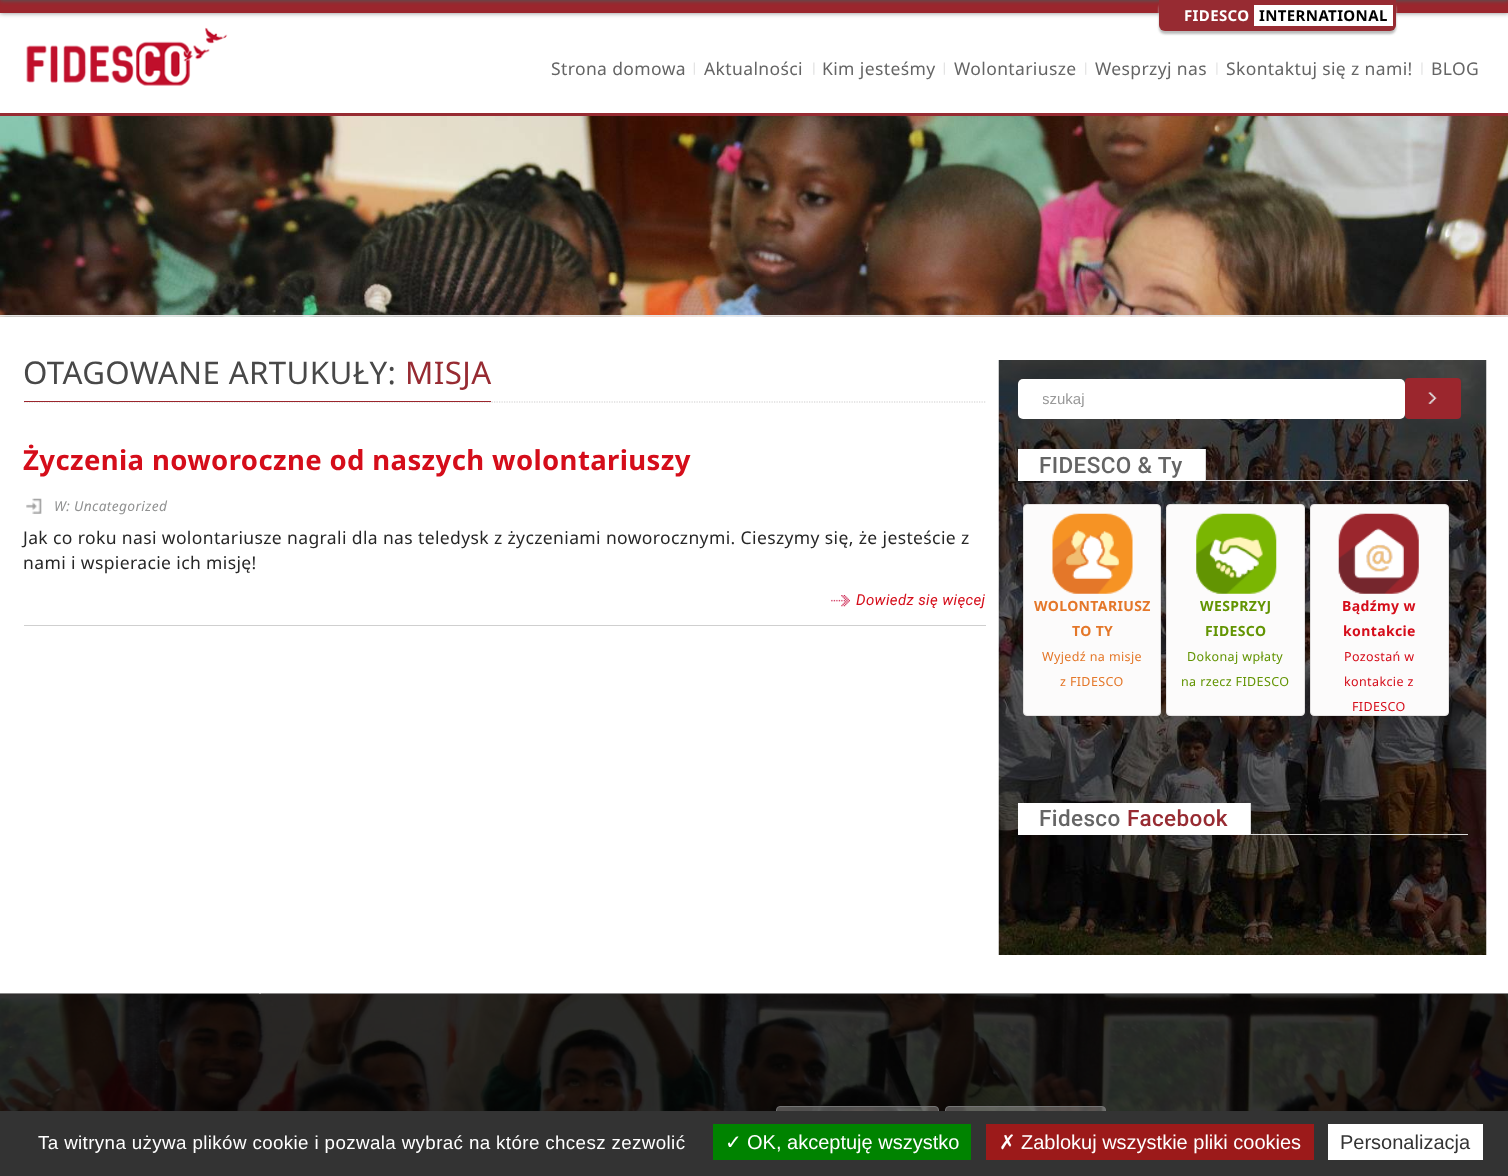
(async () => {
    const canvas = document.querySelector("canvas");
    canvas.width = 1508;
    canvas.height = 1176;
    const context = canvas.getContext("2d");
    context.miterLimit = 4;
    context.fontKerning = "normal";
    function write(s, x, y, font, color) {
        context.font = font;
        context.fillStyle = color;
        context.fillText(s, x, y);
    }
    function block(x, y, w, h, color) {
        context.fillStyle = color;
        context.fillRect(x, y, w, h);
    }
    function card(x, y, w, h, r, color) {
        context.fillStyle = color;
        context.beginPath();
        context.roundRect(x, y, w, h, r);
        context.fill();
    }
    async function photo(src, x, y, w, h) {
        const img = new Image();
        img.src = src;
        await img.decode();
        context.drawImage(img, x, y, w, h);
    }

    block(0, 0, 1508, 1176, "rgb(255, 255, 255)");
    context.fillStyle = "rgb(131, 131, 131)";
    context.filter = "blur(2.5px)";
    context.beginPath();
    context.rect(0, 0, 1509, 13);
    context.fill();
    context.filter = "none";
    block(0, 0, 1508, 13, "rgb(155, 38, 45)");
    context.fillStyle = "rgb(84, 84, 84)";
    context.filter = "blur(2px)";
    context.beginPath();
    context.rect(0, -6, 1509, 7);
    context.fill();
    context.filter = "none";
    context.fillStyle = "rgb(187, 187, 187)";
    context.filter = "blur(1px)";
    context.beginPath();
    context.roundRect(1159, 3, 237, 31, 6);
    context.fill();
    context.filter = "none";
    context.fillStyle = "rgb(151, 43, 50)";
    context.beginPath();
    context.roundRect(1159, 0, 237, 31, [0, 0, 6, 6]);
    context.fill();
    context.letterSpacing = "0.38px";
    write("FIDESCO", 1184, 21, "bold 15px Noto Sans", "rgb(255, 255, 255)");
    block(1254, 5, 139, 21, "rgb(255, 255, 255)");
    write("INTERNATIONAL", 1259, 21, "bold 15px Noto Sans", "rgb(0, 0, 0)");
    block(0, 113, 1508, 3, "rgb(151, 43, 50)");
    await photo("media/1.png", 26, 27, 202, 59);
    write("Strona domowa", 551, 75, "17.5px Noto Sans", "rgb(101, 101, 101)");
    await photo("media/2.png", 693, 62, 2, 13);
    write("Aktualności", 704, 75, "17.5px Noto Sans", "rgb(101, 101, 101)");
    await photo("media/3.png", 813, 62, 2, 13);
    write("Kim jesteśmy", 822, 75, "17.5px Noto Sans", "rgb(101, 101, 101)");
    await photo("media/2.png", 943, 62, 2, 13);
    write("Wolontariusze", 954, 75, "17.5px Noto Sans", "rgb(101, 101, 101)");
    await photo("media/4.png", 1085, 62, 2, 13);
    write("Wesprzyj nas", 1095, 75, "17.5px Noto Sans", "rgb(101, 101, 101)");
    await photo("media/5.png", 1216, 62, 2, 13);
    write("Skontaktuj się z nami!", 1226, 75, "17.5px Noto Sans", "rgb(101, 101, 101)");
    await photo("media/6.png", 1421, 62, 2, 13);
    write("BLOG", 1431, 75, "17.5px Noto Sans", "rgb(101, 101, 101)");
    await photo("media/7.png", 0, 116, 1508, 201);
    block(0, 315, 1508, 1, "rgb(229, 229, 229)");
    context.beginPath();
    context.moveTo(24, 402);
    context.lineTo(986, 402);
    context.strokeStyle = "rgb(206, 205, 205)";
    context.lineWidth = 1.2;
    context.setLineDash([1.25, 1.25]);
    context.stroke();
    write("OTAGOWANE ARTUKUŁY:", 23, 384, "31.25px Noto Sans", "rgb(72, 72, 72)");
    write("MISJA", 405, 384, "31.25px Noto Sans", "rgb(151, 43, 50)");
    block(24, 401, 467, 1, "rgb(155, 38, 45)");
    block(24, 625, 962, 1, "rgb(207, 207, 207)");
    write("Życzenia noworoczne od naszych wolontariuszy", 23, 470, "bold 27.5px Noto Sans", "rgb(213, 13, 26)");
    await photo("media/8.png", 26, 498, 16, 16);
    write("W: Uncategorized", 54, 511, "italic 13.75px Noto Sans", "rgb(144, 145, 145)");
    write("Jak co roku nasi wolontariusze nagrali dla nas teledysk z życzeniami noworocznymi. Cieszymy się, że jesteście z", 23, 544, "17.5px Noto Sans", "rgb(39, 39, 39)");
    write("nami i wspieracie ich misję!", 23, 569, "17.5px Noto Sans", "rgb(39, 39, 39)");
    await photo("media/9.png", 831, 595, 19, 12);
    write("Dowiedz się więcej", 856, 605, "italic 15px Roboto", "rgb(213, 13, 26)");
    await photo("media/10.png", 998, 360, 489, 595);
    card(1018, 379, 387, 40, 5, "rgb(255, 255, 255)");
    context.save();
    context.beginPath();
    context.rect(1043, 390, 362, 18);
    context.clip();
    context.letterSpacing = "0px";
    write("szukaj", 1042, 404, "15px Liberation Sans", "rgb(153, 153, 153)");
    context.restore();
    card(1405, 378, 56, 41, 4, "rgb(155, 38, 45)");
    await photo("media/11.png", 1428, 392, 9, 12);
    block(1206, 480, 262, 1, "rgb(218, 218, 218)");
    block(1018, 449, 187, 32, "rgb(255, 255, 255)");
    block(1205, 449, 1, 32, "rgb(218, 218, 218)");
    write("FIDESCO & Ty", 1039, 473, "500 22.5px Roboto", "rgb(101, 101, 101)");
    context.fillStyle = "rgb(252, 251, 251)";
    context.beginPath();
    context.roundRect(1023.5, 504.5, 137, 211, 3.5);
    context.fill();
    context.strokeStyle = "rgb(228, 226, 226)";
    context.lineWidth = 1;
    context.setLineDash([]);
    context.stroke();
    await photo("media/12.png", 1052, 513, 81, 81);
    write("WOLONTARIUSZ", 1034, 611, "bold 14px Noto Sans", "rgb(228, 119, 41)");
    write("TO TY", 1072, 636, "bold 14px Noto Sans", "rgb(228, 119, 41)");
    write("Wyjedź na misje", 1042, 661, "12.5px Noto Sans", "rgb(228, 119, 41)");
    write("z FIDESCO", 1060, 686, "12.5px Noto Sans", "rgb(228, 119, 41)");
    context.fillStyle = "rgb(252, 251, 251)";
    context.beginPath();
    context.roundRect(1166.5, 504.5, 138, 211, 3.5);
    context.fill();
    context.stroke();
    await photo("media/13.png", 1196, 513, 81, 81);
    write("WESPRZYJ", 1200, 611, "bold 14px Noto Sans", "rgb(98, 148, 2)");
    write("FIDESCO", 1205, 636, "bold 14px Noto Sans", "rgb(98, 148, 2)");
    write("Dokonaj wpłaty", 1187, 661, "12.5px Noto Sans", "rgb(98, 148, 2)");
    write("na rzecz FIDESCO", 1181, 686, "12.5px Noto Sans", "rgb(98, 148, 2)");
    context.fillStyle = "rgb(252, 251, 251)";
    context.beginPath();
    context.roundRect(1310.5, 504.5, 138, 211, 3.5);
    context.fill();
    context.stroke();
    await photo("media/14.png", 1338, 513, 81, 81);
    write("Bądźmy w", 1342, 611, "bold 14px Noto Sans", "rgb(213, 13, 26)");
    write("kontakcie", 1343, 636, "bold 14px Noto Sans", "rgb(213, 13, 26)");
    write("Pozostań w", 1344, 661, "12.5px Noto Sans", "rgb(213, 13, 26)");
    write("kontakcie z", 1344, 686, "12.5px Noto Sans", "rgb(213, 13, 26)");
    write("FIDESCO", 1352, 711, "12.5px Noto Sans", "rgb(213, 13, 26)");
    block(1251, 834, 217, 1, "rgb(218, 218, 218)");
    block(1018, 803, 232, 32, "rgb(255, 255, 255)");
    block(1250, 803, 1, 32, "rgb(218, 218, 218)");
    write("Fidesco", 1039, 826, "500 22.5px Roboto", "rgb(101, 101, 101)");
    write("Facebook", 1127, 826, "500 22.5px Roboto", "rgb(151, 43, 50)");
    await photo("media/15.png", 0, 994, 1508, 117);
    block(0, 993, 1508, 1, "rgb(137, 136, 136)");
    context.fillStyle = "rgb(255, 255, 255)";
    context.beginPath();
    context.moveTo(250, 981);
    context.lineTo(270, 981);
    context.lineTo(260, 994);
    context.closePath();
    context.fill();
    context.fillStyle = "rgba(252, 251, 251, 0.3)";
    context.beginPath();
    context.roundRect(776.5, 1106.5, 162, 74, 3.5);
    context.fill();
    context.strokeStyle = "rgb(117, 117, 117)";
    context.stroke();
    context.beginPath();
    context.roundRect(945.5, 1106.5, 160, 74, 3.5);
    context.fill();
    context.stroke();
    block(0, 1111, 1508, 65, "rgb(51, 51, 51)");
    write("Ta witryna używa plików cookie i pozwala wybrać na które chcesz zezwolić", 38, 1149, "18.75px Liberation Sans", "rgb(255, 255, 255)");
    block(713, 1124, 258, 36, "rgb(0, 131, 0)");
    context.letterSpacing = "0px";
    write("✓", 725, 1149, "20px DejaVu Sans", "rgb(255, 255, 255)");
    write("OK, akceptuję wszystko", 747, 1149, "20px Liberation Sans", "rgb(255, 255, 255)");
    block(986, 1124, 328, 36, "rgb(156, 26, 26)");
    write("✗", 999, 1149, "20px DejaVu Sans", "rgb(255, 255, 255)");
    write("Zablokuj wszystkie pliki cookies", 1021, 1149, "20px Liberation Sans", "rgb(255, 255, 255)");
    block(1328, 1124, 155, 36, "rgb(255, 255, 255)");
    write("Personalizacja", 1340, 1149, "20px Liberation Sans", "rgb(51, 51, 51)");
})();
